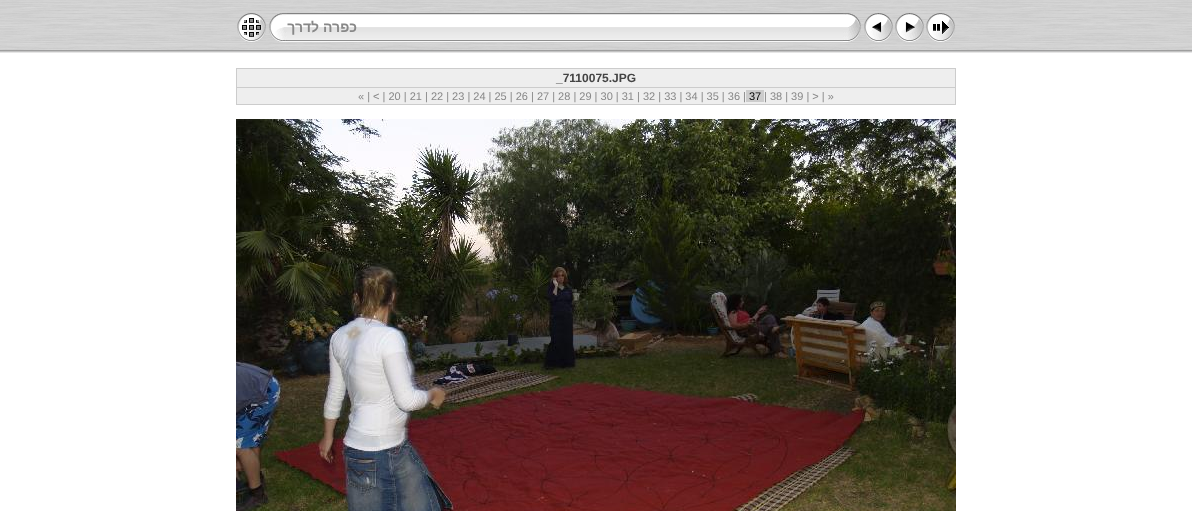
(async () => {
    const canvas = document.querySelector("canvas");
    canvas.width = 1192;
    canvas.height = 511;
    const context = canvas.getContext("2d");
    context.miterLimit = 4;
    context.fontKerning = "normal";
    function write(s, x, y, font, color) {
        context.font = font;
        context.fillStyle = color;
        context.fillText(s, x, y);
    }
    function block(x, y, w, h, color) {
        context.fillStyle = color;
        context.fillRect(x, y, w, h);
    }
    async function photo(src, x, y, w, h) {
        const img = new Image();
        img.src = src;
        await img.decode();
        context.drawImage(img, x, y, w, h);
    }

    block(0, 0, 1192, 511, "rgb(255, 255, 255)");
    await photo("media/1.png", 0, 0, 1192, 53);
    await photo("media/2.png", 237, 13, 29, 29);
    await photo("media/3.png", 269, 13, 18, 29);
    await photo("media/4.png", 287, 13, 556, 29);
    context.direction = "rtl";
    write("כפרה לדרך", 357, 32, "bold 14px Liberation Sans", "rgb(136, 136, 136)");
    await photo("media/5.png", 843, 13, 18, 29);
    await photo("media/6.png", 864, 13, 29, 29);
    await photo("media/7.png", 895, 13, 29, 29);
    await photo("media/8.png", 926, 13, 29, 29);
    block(236, 68, 720, 1, "rgb(204, 204, 204)");
    block(955, 68, 1, 37, "rgb(204, 204, 204)");
    block(236, 104, 720, 1, "rgb(204, 204, 204)");
    block(236, 68, 1, 37, "rgb(204, 204, 204)");
    block(237, 69, 718, 18, "rgb(238, 238, 238)");
    context.direction = "ltr";
    write("_7110075.JPG", 556, 82, "bold 12px Liberation Sans", "rgb(68, 68, 68)");
    block(237, 88, 718, 16, "rgb(238, 238, 238)");
    block(236, 87, 720, 1, "rgb(204, 204, 204)");
    write("« | < | 20 | 21 | 22 | 23 | 24 | 25 | 26 | 27 | 28 | 29 | 30 | 31 | 32 | 33 | 34 | 35 | 36 |", 358, 100, "11px Liberation Sans", "rgb(136, 136, 136)");
    block(746, 90, 18, 12, "rgb(204, 204, 204)");
    write("37", 749, 100, "11px Liberation Sans", "rgb(0, 0, 0)");
    write("| 38 | 39 | > | »", 764, 100, "11px Liberation Sans", "rgb(136, 136, 136)");
    await photo("media/9.png", 236, 119, 720, 392);
})();
